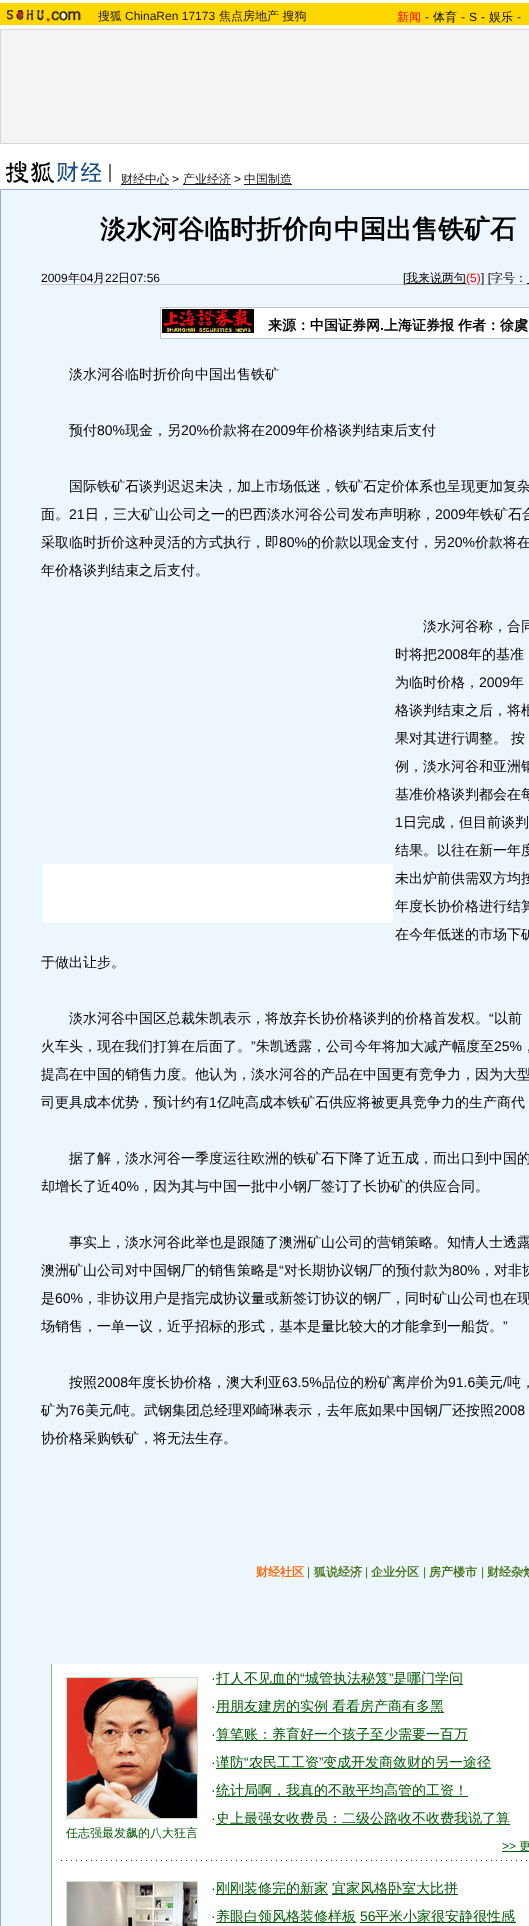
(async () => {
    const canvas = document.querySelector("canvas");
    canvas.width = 529;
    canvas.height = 1926;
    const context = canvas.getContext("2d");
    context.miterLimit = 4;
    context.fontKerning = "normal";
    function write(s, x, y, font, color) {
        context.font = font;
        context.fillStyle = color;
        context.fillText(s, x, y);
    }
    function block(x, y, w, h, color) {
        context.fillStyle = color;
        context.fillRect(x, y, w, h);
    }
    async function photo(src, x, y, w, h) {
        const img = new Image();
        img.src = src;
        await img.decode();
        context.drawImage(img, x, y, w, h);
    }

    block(0, 0, 529, 1926, "rgb(255, 255, 255)");
    block(0, 3, 529, 22, "rgb(255, 215, 0)");
    await photo("media/1.png", 7, 10, 74, 12);
    write("搜狐", 98, 20, "500 12px WenQuanYi Zen Hei", "rgb(25, 25, 25)");
    write("ChinaRen 17173", 125, 20, "12px Liberation Sans", "rgb(25, 25, 25)");
    write("焦点房地产 搜狗", 219, 20, "500 12px WenQuanYi Zen Hei", "rgb(25, 25, 25)");
    write("新闻", 397, 21, "500 12px WenQuanYi Zen Hei", "rgb(255, 0, 0)");
    write("-", 425, 21, "12px Liberation Sans", "rgb(0, 0, 0)");
    write("体育", 433, 21, "500 12px WenQuanYi Zen Hei", "rgb(0, 0, 0)");
    write("-", 461, 21, "12px Liberation Sans", "rgb(0, 0, 0)");
    write("S", 469, 21, "12px Liberation Sans", "rgb(0, 0, 0)");
    write("-", 481, 21, "12px Liberation Sans", "rgb(0, 0, 0)");
    write("娱乐", 489, 21, "500 12px WenQuanYi Zen Hei", "rgb(0, 0, 0)");
    write("-", 517, 21, "12px Liberation Sans", "rgb(0, 0, 0)");
    context.fillStyle = "rgb(244, 244, 244)";
    context.beginPath();
    context.rect(0.5, 29.5, 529, 114);
    context.fill();
    context.strokeStyle = "rgb(215, 215, 215)";
    context.stroke();
    await photo("media/2.png", 5, 161, 106, 22);
    block(121, 184, 48, 1, "rgb(25, 25, 25)");
    write("财经中心", 121, 183, "500 12px WenQuanYi Zen Hei", "rgb(25, 25, 25)");
    write(">", 172, 183, "12px Liberation Sans", "rgb(0, 0, 0)");
    block(183, 184, 48, 1, "rgb(25, 25, 25)");
    write("产业经济", 183, 183, "500 12px WenQuanYi Zen Hei", "rgb(25, 25, 25)");
    write(">", 234, 183, "12px Liberation Sans", "rgb(0, 0, 0)");
    block(244, 184, 48, 1, "rgb(25, 25, 25)");
    write("中国制造", 244, 183, "500 12px WenQuanYi Zen Hei", "rgb(25, 25, 25)");
    context.fillStyle = "rgb(237, 245, 253)";
    context.beginPath();
    context.rect(0.5, 189.5, 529, 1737);
    context.fill();
    context.strokeStyle = "rgb(143, 175, 210)";
    context.stroke();
    write("淡水河谷临时折价向中国出售铁矿石", 100, 238, "bold 26px WenQuanYi Zen Hei", "rgb(0, 0, 0)");
    block(41, 284, 488, 1, "rgb(197, 197, 197)");
    write("2009", 41, 282, "12px Liberation Sans", "rgb(0, 0, 0)");
    write("年", 68, 282, "500 12px WenQuanYi Zen Hei", "rgb(0, 0, 0)");
    write("04", 80, 282, "12px Liberation Sans", "rgb(0, 0, 0)");
    write("月", 93, 282, "500 12px WenQuanYi Zen Hei", "rgb(0, 0, 0)");
    write("22", 105, 282, "12px Liberation Sans", "rgb(0, 0, 0)");
    write("日", 118, 282, "500 12px WenQuanYi Zen Hei", "rgb(0, 0, 0)");
    write("07:56", 130, 282, "12px Liberation Sans", "rgb(0, 0, 0)");
    write("[", 403, 282, "12px Liberation Sans", "rgb(0, 0, 0)");
    block(406, 283, 60, 1, "rgb(0, 0, 0)");
    write("我来说两句", 406, 282, "500 12px WenQuanYi Zen Hei", "rgb(0, 0, 0)");
    write("(5)", 466, 282, "12px Liberation Sans", "rgb(255, 0, 0)");
    write("] [", 481, 282, "12px Liberation Sans", "rgb(0, 0, 0)");
    write("字号：", 491, 282, "500 12px WenQuanYi Zen Hei", "rgb(0, 0, 0)");
    block(527, 283, 2, 1, "rgb(0, 0, 0)");
    context.fillStyle = "rgb(255, 255, 255)";
    context.beginPath();
    context.rect(160.5, 307.5, 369, 31);
    context.fill();
    context.strokeStyle = "rgb(197, 197, 197)";
    context.stroke();
    await photo("media/3.png", 162, 309, 92, 24);
    write("来源：中国证券网", 268, 330, "bold 14px WenQuanYi Zen Hei", "rgb(0, 0, 0)");
    write(".", 380, 330, "bold 14px Liberation Sans", "rgb(0, 0, 0)");
    write("上海证券报", 384, 330, "bold 14px WenQuanYi Zen Hei", "rgb(0, 0, 0)");
    write("作者：徐虞", 458, 330, "bold 14px WenQuanYi Zen Hei", "rgb(0, 0, 0)");
    write("淡水河谷临时折价向中国出售铁矿", 69, 379, "500 14px WenQuanYi Zen Hei", "rgb(0, 0, 0)");
    write("预付", 69, 435, "500 14px WenQuanYi Zen Hei", "rgb(0, 0, 0)");
    write("80%", 97, 435, "14px Liberation Sans", "rgb(0, 0, 0)");
    write("现金，另", 125, 435, "500 14px WenQuanYi Zen Hei", "rgb(0, 0, 0)");
    write("20%", 181, 435, "14px Liberation Sans", "rgb(0, 0, 0)");
    write("价款将在", 209, 435, "500 14px WenQuanYi Zen Hei", "rgb(0, 0, 0)");
    write("2009", 265, 435, "14px Liberation Sans", "rgb(0, 0, 0)");
    write("年价格谈判结束后支付", 296, 435, "500 14px WenQuanYi Zen Hei", "rgb(0, 0, 0)");
    write("国际铁矿石谈判迟迟未决，加上市场低迷，铁矿石定价体系也呈现更加复杂", 69, 491, "500 14px WenQuanYi Zen Hei", "rgb(0, 0, 0)");
    write("面。", 41, 519, "500 14px WenQuanYi Zen Hei", "rgb(0, 0, 0)");
    write("21", 69, 519, "14px Liberation Sans", "rgb(0, 0, 0)");
    write("日，三大矿山公司之一的巴西淡水河谷公司发布声明称，", 85, 519, "500 14px WenQuanYi Zen Hei", "rgb(0, 0, 0)");
    write("2009", 435, 519, "14px Liberation Sans", "rgb(0, 0, 0)");
    write("年铁矿石合", 466, 519, "500 14px WenQuanYi Zen Hei", "rgb(0, 0, 0)");
    write("采取临时折价这种灵活的方式执行，即", 41, 547, "500 14px WenQuanYi Zen Hei", "rgb(0, 0, 0)");
    write("80%", 279, 547, "14px Liberation Sans", "rgb(0, 0, 0)");
    write("的价款以现金支付，另", 307, 547, "500 14px WenQuanYi Zen Hei", "rgb(0, 0, 0)");
    write("20%", 447, 547, "14px Liberation Sans", "rgb(0, 0, 0)");
    write("价款将在", 475, 547, "500 14px WenQuanYi Zen Hei", "rgb(0, 0, 0)");
    write("年价格谈判结束之后支付。", 41, 575, "500 14px WenQuanYi Zen Hei", "rgb(0, 0, 0)");
    write("淡水河谷称，合同", 423, 631, "500 14px WenQuanYi Zen Hei", "rgb(0, 0, 0)");
    write("时将把", 395, 659, "500 14px WenQuanYi Zen Hei", "rgb(0, 0, 0)");
    write("2008", 437, 659, "14px Liberation Sans", "rgb(0, 0, 0)");
    write("年的基准", 468, 659, "500 14px WenQuanYi Zen Hei", "rgb(0, 0, 0)");
    write("为临时价格，", 395, 687, "500 14px WenQuanYi Zen Hei", "rgb(0, 0, 0)");
    write("2009", 479, 687, "14px Liberation Sans", "rgb(0, 0, 0)");
    write("年", 510, 687, "500 14px WenQuanYi Zen Hei", "rgb(0, 0, 0)");
    write("格谈判结束之后，将根", 395, 715, "500 14px WenQuanYi Zen Hei", "rgb(0, 0, 0)");
    write("果对其进行调整。", 395, 743, "500 14px WenQuanYi Zen Hei", "rgb(0, 0, 0)");
    write("按", 511, 743, "500 14px WenQuanYi Zen Hei", "rgb(0, 0, 0)");
    write("例，淡水河谷和亚洲钢", 395, 771, "500 14px WenQuanYi Zen Hei", "rgb(0, 0, 0)");
    write("基准价格谈判都会在每", 395, 799, "500 14px WenQuanYi Zen Hei", "rgb(0, 0, 0)");
    write("1", 395, 827, "14px Liberation Sans", "rgb(0, 0, 0)");
    write("日完成，但目前谈判", 403, 827, "500 14px WenQuanYi Zen Hei", "rgb(0, 0, 0)");
    write("结果。以往在新一年度", 395, 855, "500 14px WenQuanYi Zen Hei", "rgb(0, 0, 0)");
    write("未出炉前供需双方均按", 395, 883, "500 14px WenQuanYi Zen Hei", "rgb(0, 0, 0)");
    write("年度长协价格进行结算", 395, 911, "500 14px WenQuanYi Zen Hei", "rgb(0, 0, 0)");
    write("在今年低迷的市场下矿", 395, 939, "500 14px WenQuanYi Zen Hei", "rgb(0, 0, 0)");
    write("于做出让步。", 41, 967, "500 14px WenQuanYi Zen Hei", "rgb(0, 0, 0)");
    block(43, 864, 350, 59, "rgb(255, 255, 255)");
    write("淡水河谷中国区总裁朱凯表示，将放弃长协价格谈判的价格首发权。", 69, 1023, "500 14px WenQuanYi Zen Hei", "rgb(0, 0, 0)");
    write("“", 489, 1023, "14px Liberation Sans", "rgb(0, 0, 0)");
    write("以前", 494, 1023, "500 14px WenQuanYi Zen Hei", "rgb(0, 0, 0)");
    write("火车头，现在我们打算在后面了。", 41, 1051, "500 14px WenQuanYi Zen Hei", "rgb(0, 0, 0)");
    write("”", 251, 1051, "14px Liberation Sans", "rgb(0, 0, 0)");
    write("朱凯透露，公司今年将加大减产幅度至", 256, 1051, "500 14px WenQuanYi Zen Hei", "rgb(0, 0, 0)");
    write("25%", 494, 1051, "14px Liberation Sans", "rgb(0, 0, 0)");
    write("，", 522, 1051, "500 14px WenQuanYi Zen Hei", "rgb(0, 0, 0)");
    write("提高在中国的销售力度。他认为，淡水河谷的产品在中国更有竞争力，因为大型", 41, 1079, "500 14px WenQuanYi Zen Hei", "rgb(0, 0, 0)");
    write("司更具成本优势，预计约有", 41, 1107, "500 14px WenQuanYi Zen Hei", "rgb(0, 0, 0)");
    write("1", 209, 1107, "14px Liberation Sans", "rgb(0, 0, 0)");
    write("亿吨高成本铁矿石供应将被更具竞争力的生产商代", 217, 1107, "500 14px WenQuanYi Zen Hei", "rgb(0, 0, 0)");
    write("据了解，淡水河谷一季度运往欧洲的铁矿石下降了近五成，而出口到中国的", 69, 1163, "500 14px WenQuanYi Zen Hei", "rgb(0, 0, 0)");
    write("却增长了近", 41, 1191, "500 14px WenQuanYi Zen Hei", "rgb(0, 0, 0)");
    write("40%", 111, 1191, "14px Liberation Sans", "rgb(0, 0, 0)");
    write("，因为其与中国一批中小钢厂签订了长协矿的供应合同。", 139, 1191, "500 14px WenQuanYi Zen Hei", "rgb(0, 0, 0)");
    write("事实上，淡水河谷此举也是跟随了澳洲矿山公司的营销策略。知情人士透露", 69, 1247, "500 14px WenQuanYi Zen Hei", "rgb(0, 0, 0)");
    write("澳洲矿山公司对中国钢厂的销售策略是", 41, 1275, "500 14px WenQuanYi Zen Hei", "rgb(0, 0, 0)");
    write("“", 279, 1275, "14px Liberation Sans", "rgb(0, 0, 0)");
    write("对长期协议钢厂的预付款为", 284, 1275, "500 14px WenQuanYi Zen Hei", "rgb(0, 0, 0)");
    write("80%", 452, 1275, "14px Liberation Sans", "rgb(0, 0, 0)");
    write("，对非协", 480, 1275, "500 14px WenQuanYi Zen Hei", "rgb(0, 0, 0)");
    write("是", 41, 1303, "500 14px WenQuanYi Zen Hei", "rgb(0, 0, 0)");
    write("60%", 55, 1303, "14px Liberation Sans", "rgb(0, 0, 0)");
    write("，非协议用户是指完成协议量或新签订协议的钢厂，同时矿山公司也在现", 83, 1303, "500 14px WenQuanYi Zen Hei", "rgb(0, 0, 0)");
    write("场销售，一单一议，近乎招标的形式，基本是量比较大的才能拿到一船货。", 41, 1331, "500 14px WenQuanYi Zen Hei", "rgb(0, 0, 0)");
    write("”", 503, 1331, "14px Liberation Sans", "rgb(0, 0, 0)");
    write("按照", 69, 1387, "500 14px WenQuanYi Zen Hei", "rgb(0, 0, 0)");
    write("2008", 97, 1387, "14px Liberation Sans", "rgb(0, 0, 0)");
    write("年度长协价格，澳大利亚", 128, 1387, "500 14px WenQuanYi Zen Hei", "rgb(0, 0, 0)");
    write("63.5%", 282, 1387, "14px Liberation Sans", "rgb(0, 0, 0)");
    write("品位的粉矿离岸价为", 322, 1387, "500 14px WenQuanYi Zen Hei", "rgb(0, 0, 0)");
    write("91.6", 448, 1387, "14px Liberation Sans", "rgb(0, 0, 0)");
    write("美元", 475, 1387, "500 14px WenQuanYi Zen Hei", "rgb(0, 0, 0)");
    write("/", 503, 1387, "14px Liberation Sans", "rgb(0, 0, 0)");
    write("吨，", 507, 1387, "500 14px WenQuanYi Zen Hei", "rgb(0, 0, 0)");
    write("矿为", 41, 1415, "500 14px WenQuanYi Zen Hei", "rgb(0, 0, 0)");
    write("76", 69, 1415, "14px Liberation Sans", "rgb(0, 0, 0)");
    write("美元", 85, 1415, "500 14px WenQuanYi Zen Hei", "rgb(0, 0, 0)");
    write("/", 113, 1415, "14px Liberation Sans", "rgb(0, 0, 0)");
    write("吨。武钢集团总经理邓崎琳表示，去年底如果中国钢厂还按照", 116, 1415, "500 14px WenQuanYi Zen Hei", "rgb(0, 0, 0)");
    write("2008", 494, 1415, "14px Liberation Sans", "rgb(0, 0, 0)");
    write("协价格采购铁矿，将无法生存。", 41, 1443, "500 14px WenQuanYi Zen Hei", "rgb(0, 0, 0)");
    write("财经社区", 256, 1576, "bold 12px WenQuanYi Zen Hei", "rgb(255, 102, 0)");
    write("|", 307, 1576, "12px Liberation Sans", "rgb(69, 118, 26)");
    write("狐说经济", 314, 1576, "bold 12px WenQuanYi Zen Hei", "rgb(69, 118, 26)");
    write("|", 365, 1576, "12px Liberation Sans", "rgb(69, 118, 26)");
    write("企业分区", 371, 1576, "bold 12px WenQuanYi Zen Hei", "rgb(69, 118, 26)");
    write("|", 423, 1576, "12px Liberation Sans", "rgb(69, 118, 26)");
    write("房产楼市", 429, 1576, "bold 12px WenQuanYi Zen Hei", "rgb(69, 118, 26)");
    write("|", 481, 1576, "12px Liberation Sans", "rgb(69, 118, 26)");
    write("财经杂烩", 487, 1576, "bold 12px WenQuanYi Zen Hei", "rgb(69, 118, 26)");
    block(52, 1664, 477, 262, "rgb(255, 255, 255)");
    block(51, 1664, 1, 262, "rgb(132, 187, 132)");
    block(66, 1677, 132, 142, "rgb(201, 224, 201)");
    await photo("media/4.png", 67, 1678, 130, 140);
    write("任志强最发飙的八大狂言", 66, 1837, "500 12px WenQuanYi Zen Hei", "rgb(2, 90, 6)");
    block(216, 1684, 247, 1, "rgb(2, 90, 6)");
    write("打人不见血的", 216, 1683, "500 14px WenQuanYi Zen Hei", "rgb(2, 90, 6)");
    write("“", 300, 1683, "14px Liberation Sans", "rgb(2, 90, 6)");
    write("城管执法秘笈", 305, 1683, "500 14px WenQuanYi Zen Hei", "rgb(2, 90, 6)");
    write("”", 389, 1683, "14px Liberation Sans", "rgb(2, 90, 6)");
    write("是哪门学问", 393, 1683, "500 14px WenQuanYi Zen Hei", "rgb(2, 90, 6)");
    write("·", 211, 1683, "14px Liberation Sans", "rgb(2, 90, 6)");
    write("·", 211, 1711, "14px Liberation Sans", "rgb(2, 90, 6)");
    block(216, 1712, 228, 1, "rgb(2, 90, 6)");
    write("用朋友建房的实例", 216, 1711, "500 14px WenQuanYi Zen Hei", "rgb(2, 90, 6)");
    write("看看房产商有多黑", 332, 1711, "500 14px WenQuanYi Zen Hei", "rgb(2, 90, 6)");
    write("·", 211, 1739, "14px Liberation Sans", "rgb(2, 90, 6)");
    block(216, 1740, 252, 1, "rgb(2, 90, 6)");
    write("算笔账：养育好一个孩子至少需要一百万", 216, 1739, "500 14px WenQuanYi Zen Hei", "rgb(2, 90, 6)");
    block(216, 1768, 275, 1, "rgb(2, 90, 6)");
    write("谨防", 216, 1767, "500 14px WenQuanYi Zen Hei", "rgb(2, 90, 6)");
    write("“", 244, 1767, "14px Liberation Sans", "rgb(2, 90, 6)");
    write("农民工工资", 249, 1767, "500 14px WenQuanYi Zen Hei", "rgb(2, 90, 6)");
    write("”", 319, 1767, "14px Liberation Sans", "rgb(2, 90, 6)");
    write("变成开发商敛财的另一途径", 323, 1767, "500 14px WenQuanYi Zen Hei", "rgb(2, 90, 6)");
    write("·", 211, 1767, "14px Liberation Sans", "rgb(2, 90, 6)");
    write("·", 211, 1795, "14px Liberation Sans", "rgb(2, 90, 6)");
    block(216, 1796, 252, 1, "rgb(2, 90, 6)");
    write("统计局啊，我真的不敢平均高管的工资！", 216, 1795, "500 14px WenQuanYi Zen Hei", "rgb(2, 90, 6)");
    write("·", 211, 1823, "14px Liberation Sans", "rgb(2, 90, 6)");
    block(216, 1824, 294, 1, "rgb(2, 90, 6)");
    write("史上最强女收费员：二级公路收不收费我说了算", 216, 1823, "500 14px WenQuanYi Zen Hei", "rgb(2, 90, 6)");
    write(">>", 502, 1850, "12px Liberation Sans", "rgb(2, 90, 6)");
    block(502, 1851, 27, 1, "rgb(2, 90, 6)");
    write("更", 519, 1850, "500 12px WenQuanYi Zen Hei", "rgb(2, 90, 6)");
    await photo("media/5.png", 61, 1860, 466, 1);
    block(66, 1881, 132, 45, "rgb(201, 224, 201)");
    await photo("media/6.png", 67, 1882, 130, 44);
    write("·", 211, 1893, "14px Liberation Sans", "rgb(2, 90, 6)");
    block(216, 1894, 112, 1, "rgb(2, 90, 6)");
    write("刚刚装修完的新家", 216, 1893, "500 14px WenQuanYi Zen Hei", "rgb(2, 90, 6)");
    block(332, 1894, 126, 1, "rgb(2, 90, 6)");
    write("宜家风格卧室大比拼", 332, 1893, "500 14px WenQuanYi Zen Hei", "rgb(2, 90, 6)");
    write("·", 211, 1921, "14px Liberation Sans", "rgb(2, 90, 6)");
    block(216, 1922, 140, 1, "rgb(2, 90, 6)");
    write("养眼白领风格装修样板", 216, 1921, "500 14px WenQuanYi Zen Hei", "rgb(2, 90, 6)");
    write("56", 360, 1921, "14px Liberation Sans", "rgb(2, 90, 6)");
    block(360, 1922, 156, 1, "rgb(2, 90, 6)");
    write("平米小家很安静很性感", 375, 1921, "500 14px WenQuanYi Zen Hei", "rgb(2, 90, 6)");
})();
